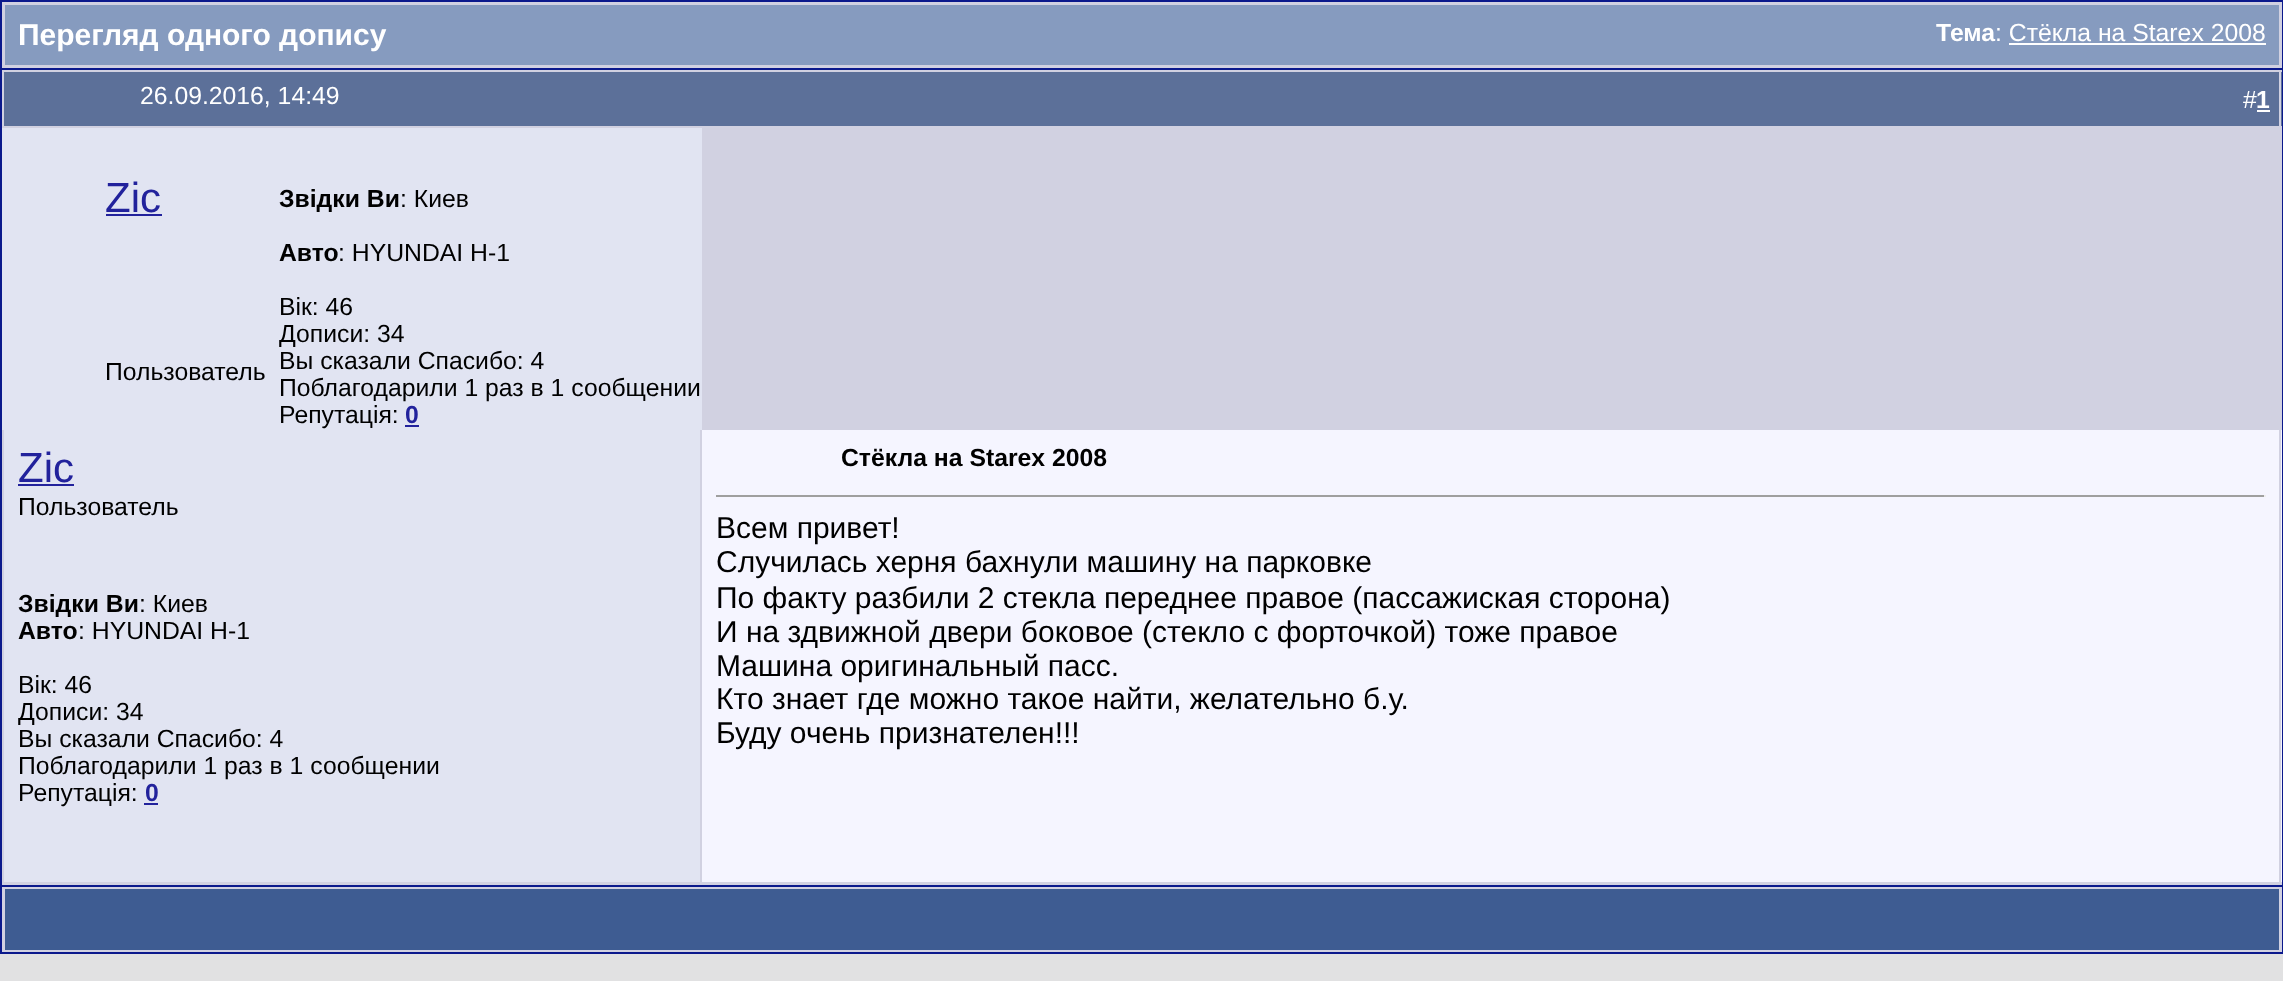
<svg xmlns="http://www.w3.org/2000/svg" width="2283" height="981" viewBox="0 0 2283 981">
  <rect width="100%" height="100%" fill="#e1e1e2"/>
  <rect x="2" y="2" width="2280" height="66" fill="#d1d1e1"/>
  <rect x="0" y="0" width="2283" height="2" fill="#0b198c"/>
  <rect x="2282" y="0" width="1" height="68" fill="#0b198c"/>
  <rect x="0" y="0" width="2" height="68" fill="#0b198c"/>
  <rect x="5" y="5" width="2274" height="60" fill="#869bbf"/>
  <text x="18" y="45" font-family="Liberation Sans" font-size="30" font-weight="bold" fill="#ffffff">Перегляд одного допису</text>
  <text x="1936" y="41" font-family="Liberation Sans" font-size="24.75" font-weight="bold" fill="#ffffff">Тема</text>
  <text x="1995" y="41" font-family="Liberation Sans" font-size="24.75" fill="#ffffff">: Стёкла на Starex 2008</text>
  <rect x="2009" y="43" width="257" height="2" fill="#ffffff"/>
  <rect x="2" y="128" width="2280" height="757" fill="#d1d1e1"/>
  <rect x="1" y="69" width="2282" height="817" fill="none" stroke="#0b198c" stroke-width="2"/>
  <rect x="4" y="72" width="2278" height="54" fill="#5c7099"/>
  <rect x="2" y="70" width="2280" height="2" fill="#d1d1e1"/>
  <rect x="2" y="126" width="700" height="2" fill="#d1d1e1"/>
  <rect x="2" y="70" width="2" height="58" fill="#d1d1e1"/>
  <text x="140" y="104" font-family="Liberation Sans" font-size="24.75" fill="#ffffff">26.09.2016, 14:49</text>
  <rect x="2279" y="70" width="2" height="58" fill="#d1d1e1"/>
  <rect x="702" y="126" width="1580" height="2" fill="#d1d1e1"/>
  <text x="2243" y="108" font-family="Liberation Sans" font-size="24.75" fill="#ffffff">#</text>
  <text x="2256" y="108" font-family="Liberation Sans" font-size="24.75" font-weight="bold" fill="#ffffff">1</text>
  <rect x="2257" y="110" width="13" height="2" fill="#ffffff"/>
  <rect x="2" y="128" width="700" height="302" fill="#e1e4f2"/>
  <text x="105" y="212" font-family="Liberation Sans" font-size="42" fill="#22229c">Zic</text>
  <rect x="106" y="214" width="56" height="2" fill="#22229c"/>
  <text x="105" y="380" font-family="Liberation Sans" font-size="24.75" fill="#000000">Пользователь</text>
  <text x="279" y="207" font-family="Liberation Sans" font-size="24.75" font-weight="bold" fill="#000000">Звідки Ви</text>
  <text x="400" y="207" font-family="Liberation Sans" font-size="24.75" fill="#000000">: Киев</text>
  <text x="279" y="261" font-family="Liberation Sans" font-size="24.75" font-weight="bold" fill="#000000">Авто</text>
  <text x="338" y="261" font-family="Liberation Sans" font-size="24.75" fill="#000000">: HYUNDAI H-1</text>
  <text x="279" y="315" font-family="Liberation Sans" font-size="24.75" fill="#000000">Вік: 46</text>
  <text x="279" y="342" font-family="Liberation Sans" font-size="24.75" fill="#000000">Дописи: 34</text>
  <text x="279" y="369" font-family="Liberation Sans" font-size="24.75" fill="#000000">Вы сказали Спасибо: 4</text>
  <text x="279" y="396" font-family="Liberation Sans" font-size="24.75" fill="#000000">Поблагодарили 1 раз в 1 сообщении</text>
  <text x="279" y="423" font-family="Liberation Sans" font-size="24.75" fill="#000000">Репутація:</text>
  <text x="405" y="423" font-family="Liberation Sans" font-size="24.75" font-weight="bold" fill="#22229c">0</text>
  <rect x="405" y="425" width="14" height="2" fill="#22229c"/>
  <rect x="4" y="430" width="696" height="452" fill="#e1e4f2"/>
  <text x="18" y="482" font-family="Liberation Sans" font-size="42" fill="#22229c">Zic</text>
  <rect x="18" y="484" width="56" height="2" fill="#22229c"/>
  <text x="18" y="515" font-family="Liberation Sans" font-size="24.75" fill="#000000">Пользователь</text>
  <text x="18" y="612" font-family="Liberation Sans" font-size="24.75" font-weight="bold" fill="#000000">Звідки Ви</text>
  <text x="139" y="612" font-family="Liberation Sans" font-size="24.75" fill="#000000">: Киев</text>
  <text x="18" y="639" font-family="Liberation Sans" font-size="24.75" font-weight="bold" fill="#000000">Авто</text>
  <text x="78" y="639" font-family="Liberation Sans" font-size="24.75" fill="#000000">: HYUNDAI H-1</text>
  <text x="18" y="693" font-family="Liberation Sans" font-size="24.75" fill="#000000">Вік: 46</text>
  <text x="18" y="720" font-family="Liberation Sans" font-size="24.75" fill="#000000">Дописи: 34</text>
  <text x="18" y="747" font-family="Liberation Sans" font-size="24.75" fill="#000000">Вы сказали Спасибо: 4</text>
  <text x="18" y="774" font-family="Liberation Sans" font-size="24.75" fill="#000000">Поблагодарили 1 раз в 1 сообщении</text>
  <text x="18" y="801" font-family="Liberation Sans" font-size="24.75" fill="#000000">Репутація:</text>
  <text x="145" y="801" font-family="Liberation Sans" font-size="24.75" font-weight="bold" fill="#22229c">0</text>
  <rect x="144" y="803" width="14" height="2" fill="#22229c"/>
  <rect x="702" y="430" width="1580" height="452" fill="#f5f5ff"/>
  <rect x="2279" y="430" width="2" height="454" fill="#d1d1e1"/>
  <text x="841" y="466" font-family="Liberation Sans" font-size="24.75" font-weight="bold" fill="#000000">Стёкла на Starex 2008</text>
  <rect x="716" y="495" width="1550" height="2" fill="#9f9f9f"/>
  <rect x="2264" y="495" width="2" height="2" fill="#eeeeee"/>
  <text x="716" y="538" font-family="Liberation Sans" font-size="30" fill="#000000">Всем привет!</text>
  <text x="716" y="572" font-family="Liberation Sans" font-size="30" fill="#000000">Случилась херня бахнули машину на парковке</text>
  <text x="716" y="608" font-family="Liberation Sans" font-size="30" fill="#000000">По факту разбили 2 стекла переднее правое (пассажиская сторона)</text>
  <text x="716" y="642" font-family="Liberation Sans" font-size="30" fill="#000000">И на здвижной двери боковое (стекло с форточкой) тоже правое</text>
  <text x="716" y="676" font-family="Liberation Sans" font-size="30" fill="#000000">Машина оригинальный пасс.</text>
  <text x="716" y="709" font-family="Liberation Sans" font-size="30" fill="#000000">Кто знает где можно такое найти, желательно б.у.</text>
  <text x="716" y="743" font-family="Liberation Sans" font-size="30" fill="#000000">Буду очень признателен!!!</text>
  <rect x="2" y="887" width="2280" height="65" fill="#d1d1e1"/>
  <rect x="2282" y="887" width="1" height="67" fill="#0b198c"/>
  <rect x="0" y="952" width="2283" height="2" fill="#0b198c"/>
  <rect x="0" y="887" width="2" height="67" fill="#0b198c"/>
  <rect x="5" y="889" width="2274" height="61" fill="#3e5c92"/>
</svg>
